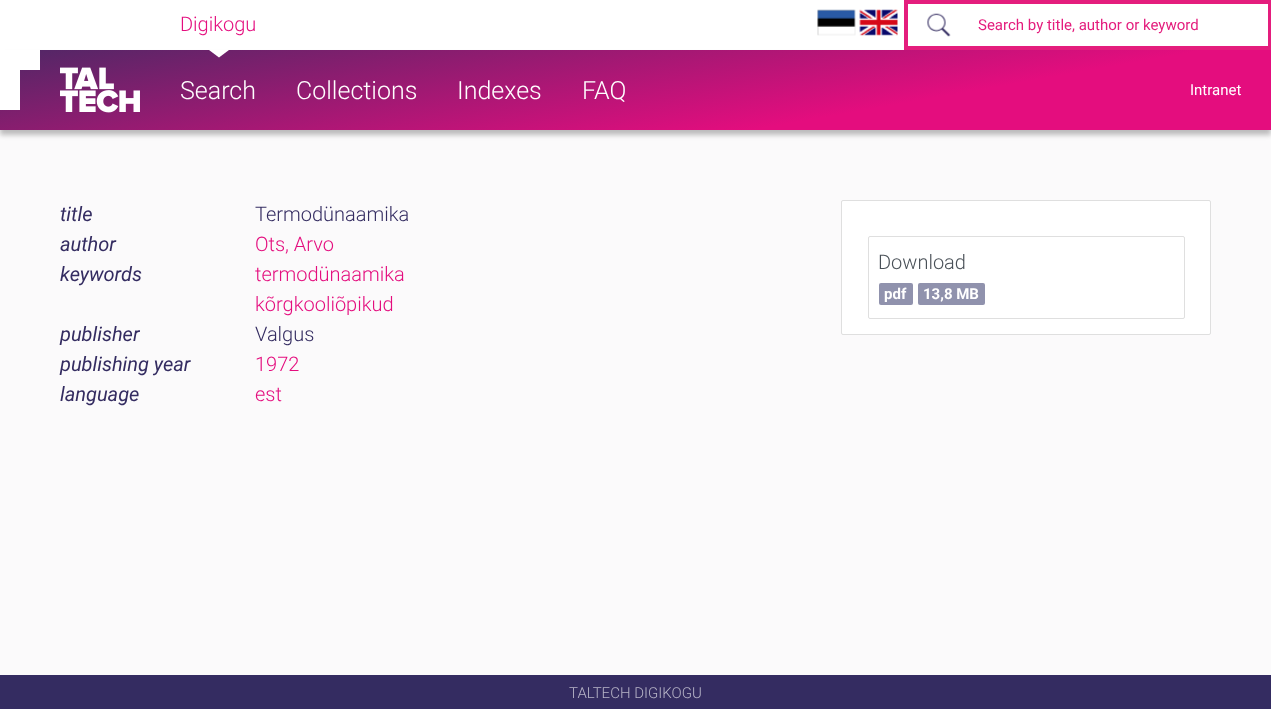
<svg xmlns="http://www.w3.org/2000/svg" width="1271" height="709" viewBox="0 0 1271 709">
  <defs>
    <filter id="blur1" x="-50%" y="-200%" width="200%" height="500%"><feGaussianBlur stdDeviation="2.5"/></filter>
    <linearGradient id="g1" gradientUnits="userSpaceOnUse" x1="610" y1="-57" x2="662" y2="237"><stop offset="0" stop-color="#512766"/><stop offset="0.7" stop-color="#e40d7e"/></linearGradient>
  </defs>
  <rect width="100%" height="100%" fill="#fbfafb"/>
  <rect x="0" y="0" width="904" height="50" fill="#ffffff"/>
  <text x="180" y="31" font-family="Roboto" font-size="20" font-weight="300" fill="#e40d7e">Digikogu</text>
  <rect x="0" y="55" width="1271" height="80" fill="#000000" fill-opacity="0.25" filter="url(#blur1)"/>
  <rect x="0" y="50" width="1271" height="80" fill="url(#g1)"/>
  <path d="M209 50H229L219 57.5Z" fill="#ffffff"/>
  <image x="817" y="9" width="39" height="27" href="img1.png"/>
  <image x="859" y="9" width="39" height="27" href="img2.png"/>
  <rect x="904" y="0" width="367" height="50" fill="#e41d7d"/>
  <rect x="908" y="4" width="360" height="42" fill="#ffffff"/>
  <image x="927" y="13" width="24" height="24" href="img3.png"/>
  <text x="978" y="30" font-family="Roboto" font-size="15" fill="#e41d7d">Search by title, author or keyword</text>
  <rect x="0" y="50" width="40" height="20" fill="#ffffff"/>
  <rect x="0" y="70" width="20" height="40" fill="#ffffff"/>
  <image x="60" y="67" width="80" height="46" href="img4.png"/>
  <text x="180" y="99" font-family="Roboto" font-size="25" font-weight="300" fill="#ffffff">Search</text>
  <text x="296" y="99" font-family="Roboto" font-size="25" font-weight="300" fill="#ffffff">Collections</text>
  <text x="457" y="99" font-family="Roboto" font-size="25" font-weight="300" fill="#ffffff">Indexes</text>
  <text x="582" y="99" font-family="Roboto" font-size="25" font-weight="300" fill="#ffffff">FAQ</text>
  <text x="1190" y="95" font-family="Roboto" font-size="15" fill="#ffffff">Intranet</text>
  <text x="60" y="221" font-family="Roboto" font-size="20" font-style="italic" fill="#342c61">title</text>
  <text x="255" y="221" font-family="Roboto" font-size="20" font-weight="300" fill="#342c61">Termodünaamika</text>
  <text x="60" y="251" font-family="Roboto" font-size="20" font-style="italic" fill="#342c61">author</text>
  <text x="255" y="251" font-family="Roboto" font-size="20" font-weight="300" fill="#e40d7e">Ots, Arvo</text>
  <text x="60" y="281" font-family="Roboto" font-size="20" font-style="italic" fill="#342c61">keywords</text>
  <text x="255" y="281" font-family="Roboto" font-size="20" font-weight="300" fill="#e40d7e">termodünaamika</text>
  <text x="255" y="311" font-family="Roboto" font-size="20" font-weight="300" fill="#e40d7e">kõrgkooliõpikud</text>
  <text x="60" y="341" font-family="Roboto" font-size="20" font-style="italic" fill="#342c61">publisher</text>
  <text x="255" y="341" font-family="Roboto" font-size="20" font-weight="300" fill="#342c61">Valgus</text>
  <text x="60" y="371" font-family="Roboto" font-size="20" font-style="italic" fill="#342c61">publishing year</text>
  <text x="255" y="371" font-family="Roboto" font-size="20" font-weight="300" fill="#e40d7e">1972</text>
  <text x="60" y="401" font-family="Roboto" font-size="20" font-style="italic" fill="#342c61">language</text>
  <text x="255" y="401" font-family="Roboto" font-size="20" font-weight="300" fill="#e40d7e">est</text>
  <rect x="841.5" y="200.5" width="369" height="134" rx="1.5" fill="#ffffff" stroke="#dfdfdf"/>
  <rect x="868.5" y="236.5" width="316" height="82" rx="1.5" fill="none" stroke="#dfdfdf"/>
  <text x="878" y="269" font-family="Roboto" font-size="20" font-weight="300" fill="#495057">Download</text>
  <rect x="879" y="283" width="34" height="22" rx="2" fill="#9092ad"/>
  <text x="884" y="299" font-family="Roboto" font-size="15" font-weight="bold" fill="#ffffff">pdf</text>
  <rect x="918" y="283" width="67" height="22" rx="2" fill="#9092ad"/>
  <text x="923" y="299" font-family="Roboto" font-size="15" font-weight="bold" fill="#ffffff">13,8 MB</text>
  <rect x="0" y="675" width="1271" height="34" fill="#342c61"/>
  <text x="569" y="698" font-family="Roboto" font-size="15" font-weight="300" fill="#b8b5c8">TALTECH DIGIKOGU</text>
</svg>
